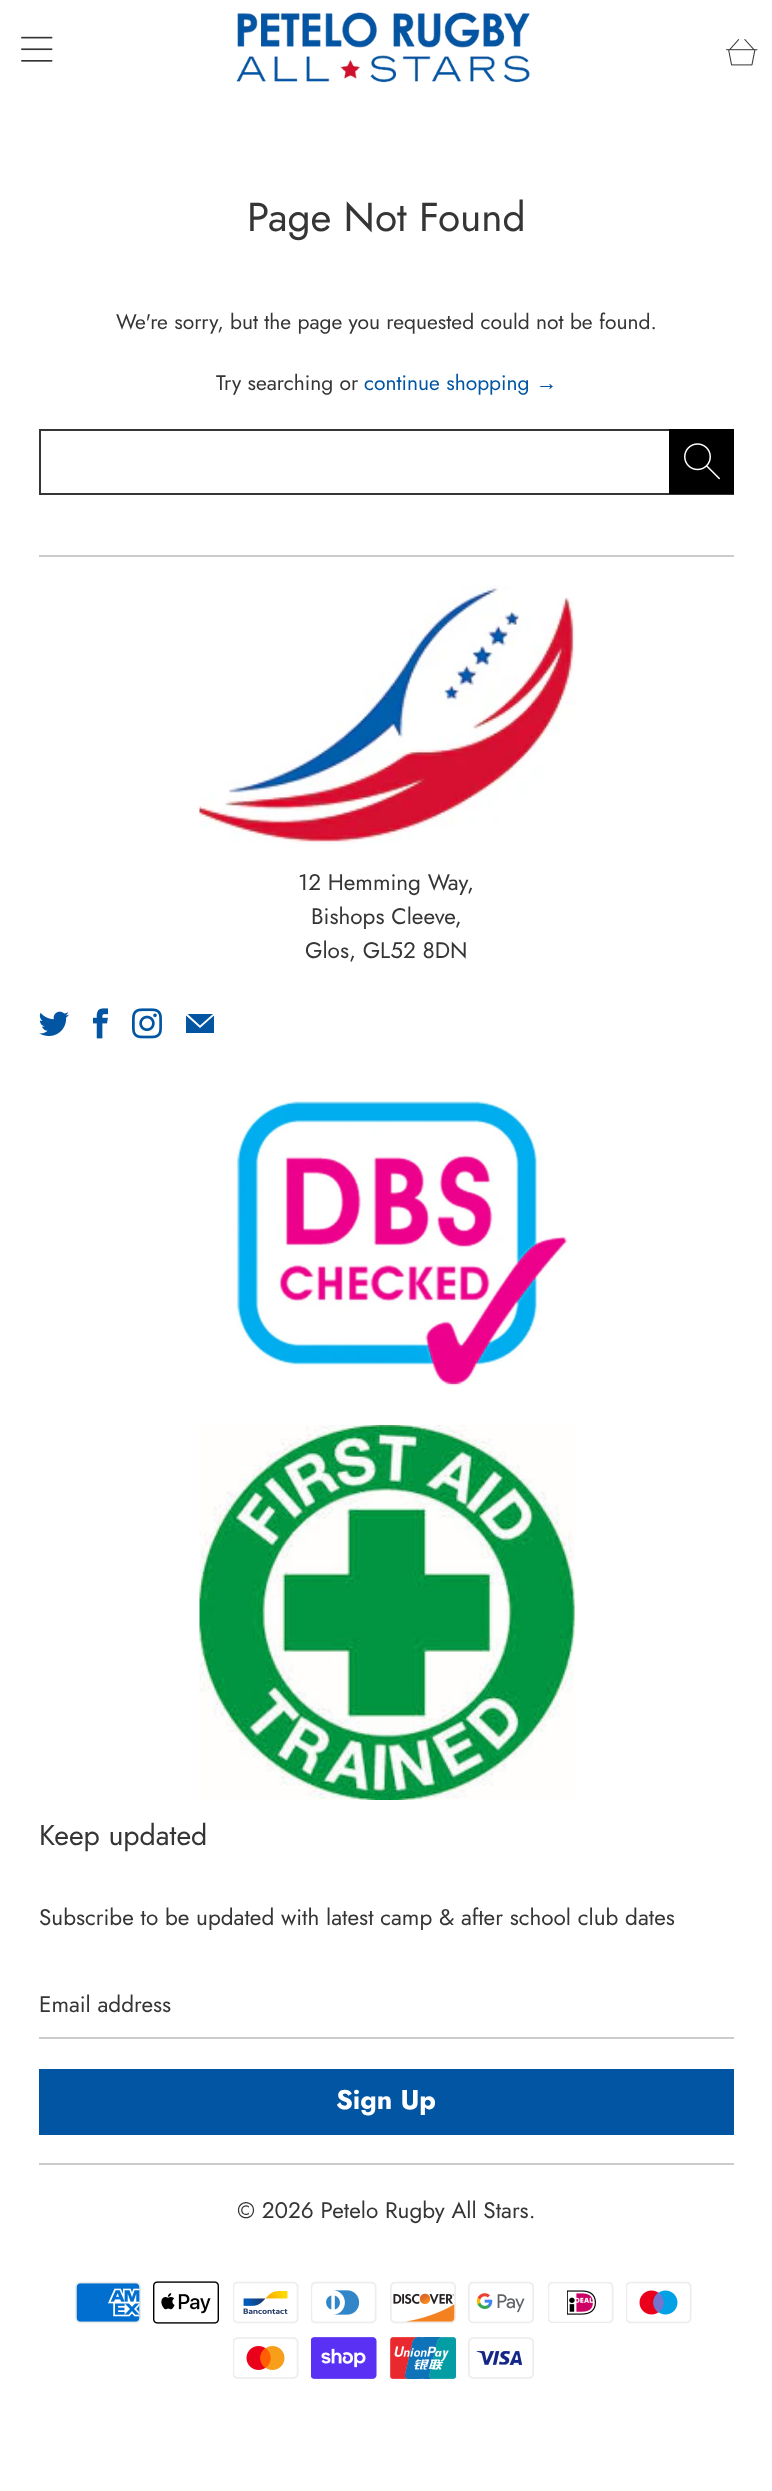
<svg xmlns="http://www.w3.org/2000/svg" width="772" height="2491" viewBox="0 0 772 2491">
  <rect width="100%" height="100%" fill="#ffffff"/>
  <image x="21" y="36" width="32" height="26" href="img1.png"/>
  <image x="236" y="12" width="294" height="71" href="img2.png"/>
  <image x="726" y="39" width="32" height="27" href="img3.png"/>
  <text x="247" y="231" font-family="Jost" font-size="40.5" fill="#353535">Page Not Found</text>
  <text x="116" y="329" font-family="Jost" font-size="21" fill="#353535">We're sorry, but the page you requested could not be found.</text>
  <text x="216" y="390" font-family="Jost" font-size="21" fill="#353535">Try searching or</text>
  <text x="364" y="390" font-family="Jost" font-size="21" fill="#0255a3">continue shopping</text>
  <text x="536" y="390" font-family="Liberation Sans" font-size="21" fill="#0255a3">→</text>
  <rect x="40" y="430" width="693" height="64" fill="none" stroke="#353535" stroke-width="2"/>
  <rect x="669" y="429" width="65" height="65" fill="#000000"/>
  <image x="684" y="443" width="36" height="37" href="img4.png"/>
  <rect x="39" y="555" width="695" height="2" fill="#cccccc"/>
  <image x="199" y="585" width="376" height="259" href="img5.png"/>
  <text x="298" y="890" font-family="Jost" font-size="22.5" fill="#353535">12 Hemming Way,</text>
  <text x="311" y="924" font-family="Jost" font-size="22.5" fill="#353535">Bishops Cleeve,</text>
  <text x="305" y="958" font-family="Jost" font-size="22.5" fill="#353535">Glos, GL52 8DN</text>
  <image x="39" y="1011" width="30" height="25" href="img6.png"/>
  <image x="93" y="1008" width="15" height="31" href="img7.png"/>
  <image x="132" y="1008" width="30" height="31" href="img8.png"/>
  <path d="M213 1014L200 1025.5L187.5 1014ZM200 1028L214 1015.5V1033H186V1015.5Z" fill="#0255a3"/>
  <image x="235" y="1098" width="334" height="288" href="img9.png"/>
  <image x="199" y="1425" width="376" height="375" href="img10.png"/>
  <text x="39" y="1845" font-family="Jost" font-size="28.5" fill="#353535">Keep updated</text>
  <text x="39" y="1925" font-family="Jost" font-size="22.5" fill="#353535">Subscribe to be updated with latest camp &amp; after school club dates</text>
  <rect x="39" y="2037" width="695" height="2" fill="#cccccc"/>
  <text x="39" y="2012" font-family="Jost" font-size="22.5" fill="#353535">Email address</text>
  <rect x="39" y="2069" width="695" height="66" fill="#0255a3"/>
  <text x="336" y="2109" font-family="Jost" font-size="27" font-weight="bold" fill="#ffffff">Sign Up</text>
  <rect x="39" y="2163" width="695" height="2" fill="#cccccc"/>
  <text x="237" y="2218" font-family="Jost" font-size="22.5" fill="#353535">© 2026 Petelo Rugby All Stars.</text>
  <image x="75" y="2281" width="66" height="43" href="img11.png"/>
  <image x="153" y="2281" width="66" height="43" href="img12.png"/>
  <image x="233" y="2281" width="66" height="43" href="img13.png"/>
  <image x="311" y="2281" width="66" height="43" href="img14.png"/>
  <image x="390" y="2281" width="66" height="43" href="img15.png"/>
  <image x="468" y="2281" width="66" height="43" href="img16.png"/>
  <image x="548" y="2282" width="66" height="41" href="img17.png"/>
  <image x="626" y="2281" width="66" height="43" href="img18.png"/>
  <image x="233" y="2337" width="66" height="42" href="img19.png"/>
  <image x="311" y="2337" width="66" height="42" href="img20.png"/>
  <image x="390" y="2337" width="66" height="42" href="img21.png"/>
  <image x="468" y="2337" width="66" height="42" href="img22.png"/>
</svg>
